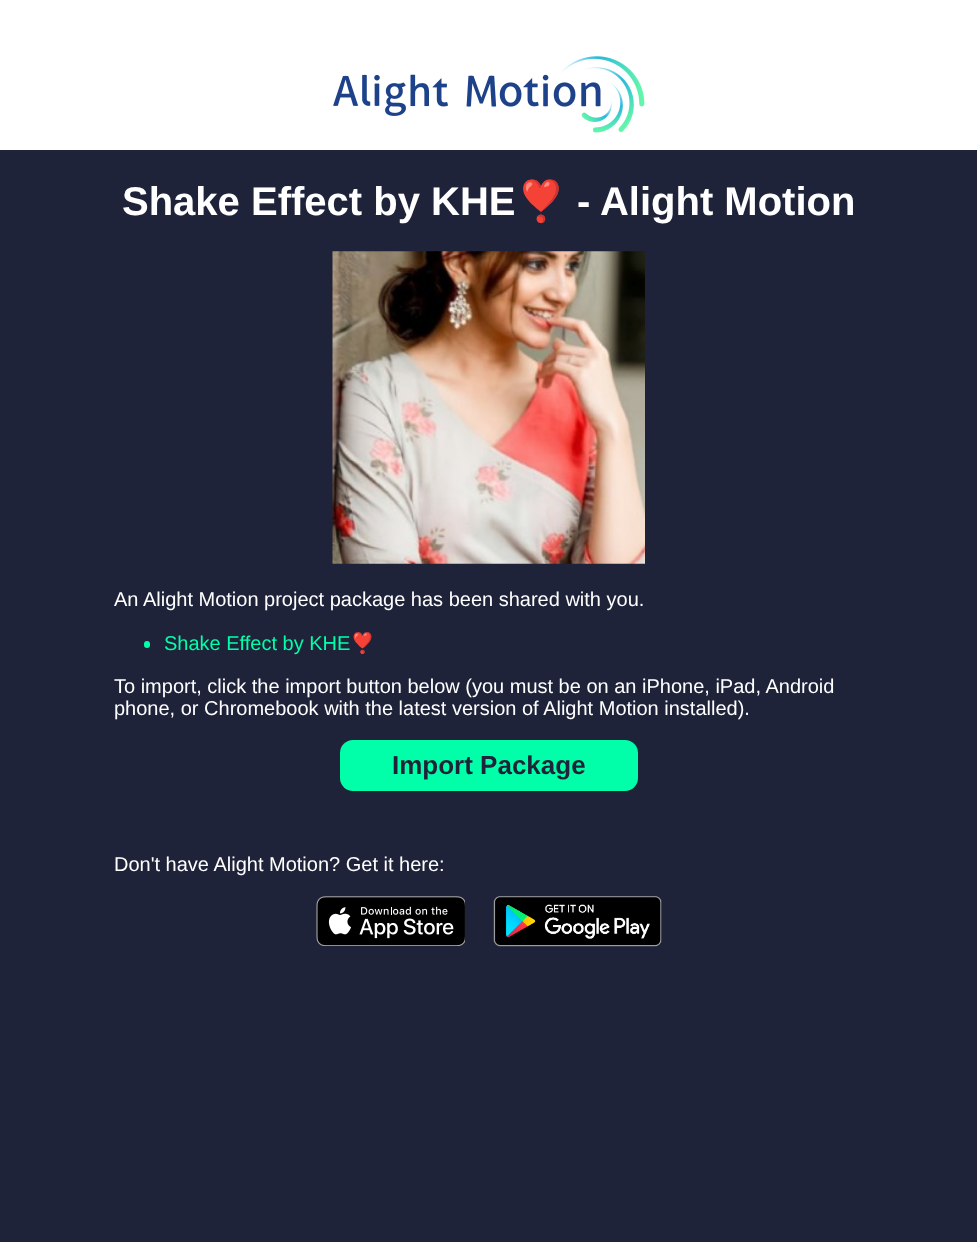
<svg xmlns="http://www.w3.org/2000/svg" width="977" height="1242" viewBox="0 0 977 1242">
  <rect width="100%" height="100%" fill="#1f233a"/>
  <rect x="0" y="0" width="977" height="150" fill="#ffffff"/>
  <image x="333" y="56" width="312" height="77" href="img1.png"/>
  <text x="122" y="215" font-family="Liberation Sans" font-size="40" font-weight="bold" fill="#ffffff">Shake Effect by KHE</text>
  <text x="516" y="215" font-family="Noto Color Emoji" font-size="40" font-weight="bold" fill="#ffffff">❣️</text>
  <text x="577" y="215" font-family="Liberation Sans" font-size="40" font-weight="bold" fill="#ffffff">- Alight Motion</text>
  <image x="332" y="251" width="313" height="313" href="img2.png"/>
  <text x="114" y="606" font-family="Liberation Sans" font-size="20" fill="#ffffff">An Alight Motion project package has been shared with you.</text>
  <rect x="144" y="641" width="6" height="7" rx="3" fill="#00ffa8"/>
  <text x="164" y="650" font-family="Liberation Sans" font-size="20" fill="#00ffa8">Shake Effect by KHE</text>
  <text x="350" y="650" font-family="Noto Color Emoji" font-size="20" fill="#00ffa8">❣️</text>
  <text x="114" y="693" font-family="Liberation Sans" font-size="20" fill="#ffffff">To import, click the import button below (you must be on an iPhone, iPad, Android</text>
  <text x="114" y="715" font-family="Liberation Sans" font-size="20" fill="#ffffff">phone, or Chromebook with the latest version of Alight Motion installed).</text>
  <rect x="340" y="740" width="298" height="51" rx="13" fill="#00ffa8"/>
  <text x="392" y="774" font-family="Liberation Sans" font-size="26" font-weight="bold" fill="#1f233a">Import Package</text>
  <text x="114" y="871" font-family="Liberation Sans" font-size="20" fill="#ffffff">Don't have Alight Motion? Get it here:</text>
  <image x="316" y="896" width="149" height="50" href="img3.png"/>
  <image x="493" y="896" width="169" height="51" href="img4.png"/>
</svg>
